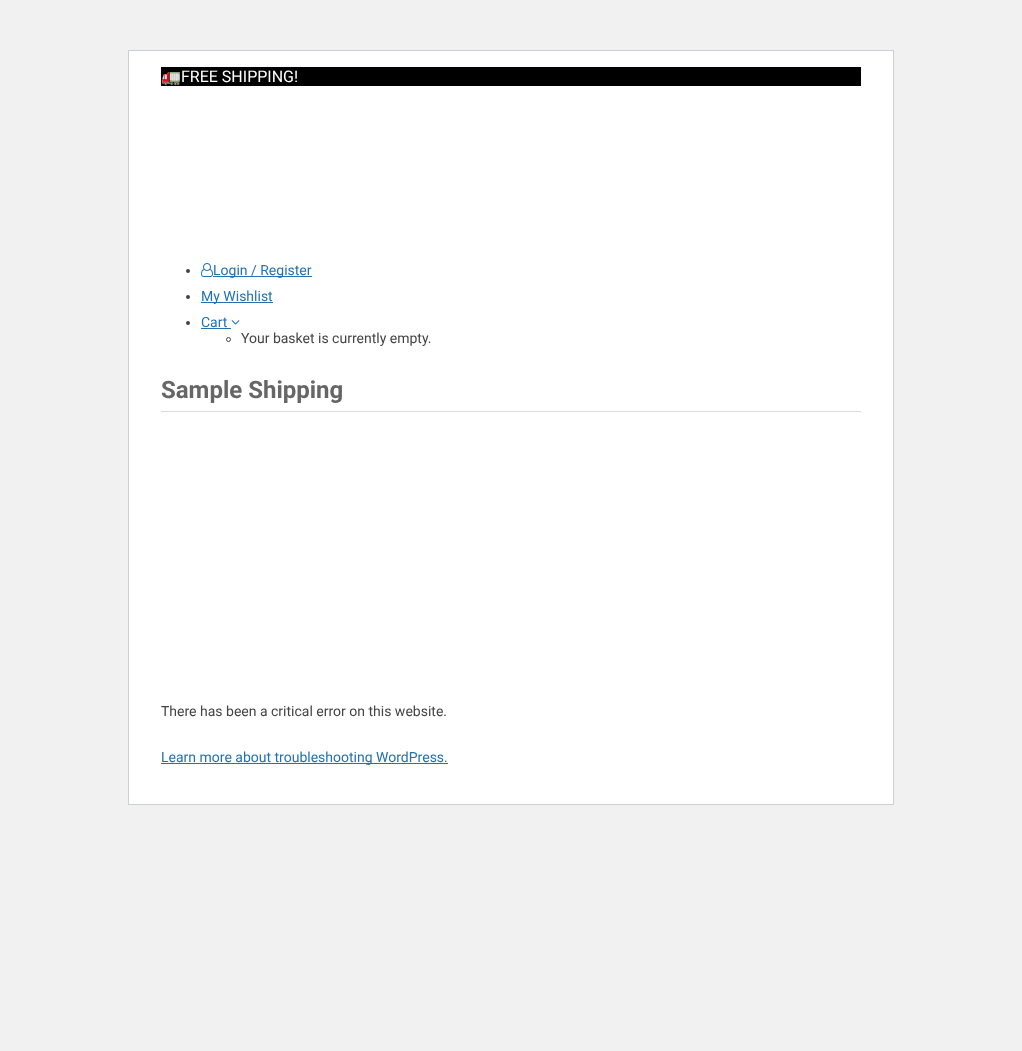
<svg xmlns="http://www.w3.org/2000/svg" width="1022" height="1051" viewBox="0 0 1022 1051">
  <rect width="100%" height="100%" fill="#f1f1f1"/>
  <rect x="128.5" y="50.5" width="765" height="754" fill="#ffffff" stroke="#ccd0d4"/>
  <rect x="161" y="67" width="700" height="19" fill="#000000"/>
  <text x="161" y="82" font-family="Noto Color Emoji" font-size="16" fill="#ffffff">🚛</text>
  <text x="181" y="82" font-family="Roboto" font-size="16" fill="#ffffff">FREE SHIPPING!</text>
  <circle cx="188" cy="271" r="2" fill="#444444"/>
  <image x="201" y="263" width="12" height="14" href="img1.png"/>
  <rect x="213" y="276" width="99" height="1" fill="#2271b1"/>
  <text x="213" y="275" font-family="Roboto" font-size="14" fill="#2271b1">Login / Register</text>
  <circle cx="188" cy="297" r="2" fill="#444444"/>
  <rect x="201" y="302" width="72" height="1" fill="#2271b1"/>
  <text x="201" y="301" font-family="Roboto" font-size="14" fill="#2271b1">My Wishlist</text>
  <circle cx="188" cy="323" r="2" fill="#444444"/>
  <text x="201" y="327" font-family="Roboto" font-size="14" fill="#2271b1">Cart</text>
  <rect x="201" y="328" width="30" height="1" fill="#2271b1"/>
  <image x="231" y="320" width="9" height="5" href="img2.png"/>
  <circle cx="228.5" cy="339.5" r="2" fill="none" stroke="#444444"/>
  <text x="241" y="343" font-family="Roboto" font-size="14" fill="#444444">Your basket is currently empty.</text>
  <rect x="161" y="411" width="700" height="1" fill="#dadada"/>
  <text x="161" y="398" font-family="Roboto" font-size="24" font-weight="bold" fill="#666666">Sample Shipping</text>
  <text x="161" y="716" font-family="Roboto" font-size="14" fill="#444444">There has been a critical error on this website.</text>
  <rect x="161" y="763" width="287" height="1" fill="#2271b1"/>
  <text x="161" y="762" font-family="Roboto" font-size="14" fill="#2271b1">Learn more about troubleshooting WordPress.</text>
</svg>
